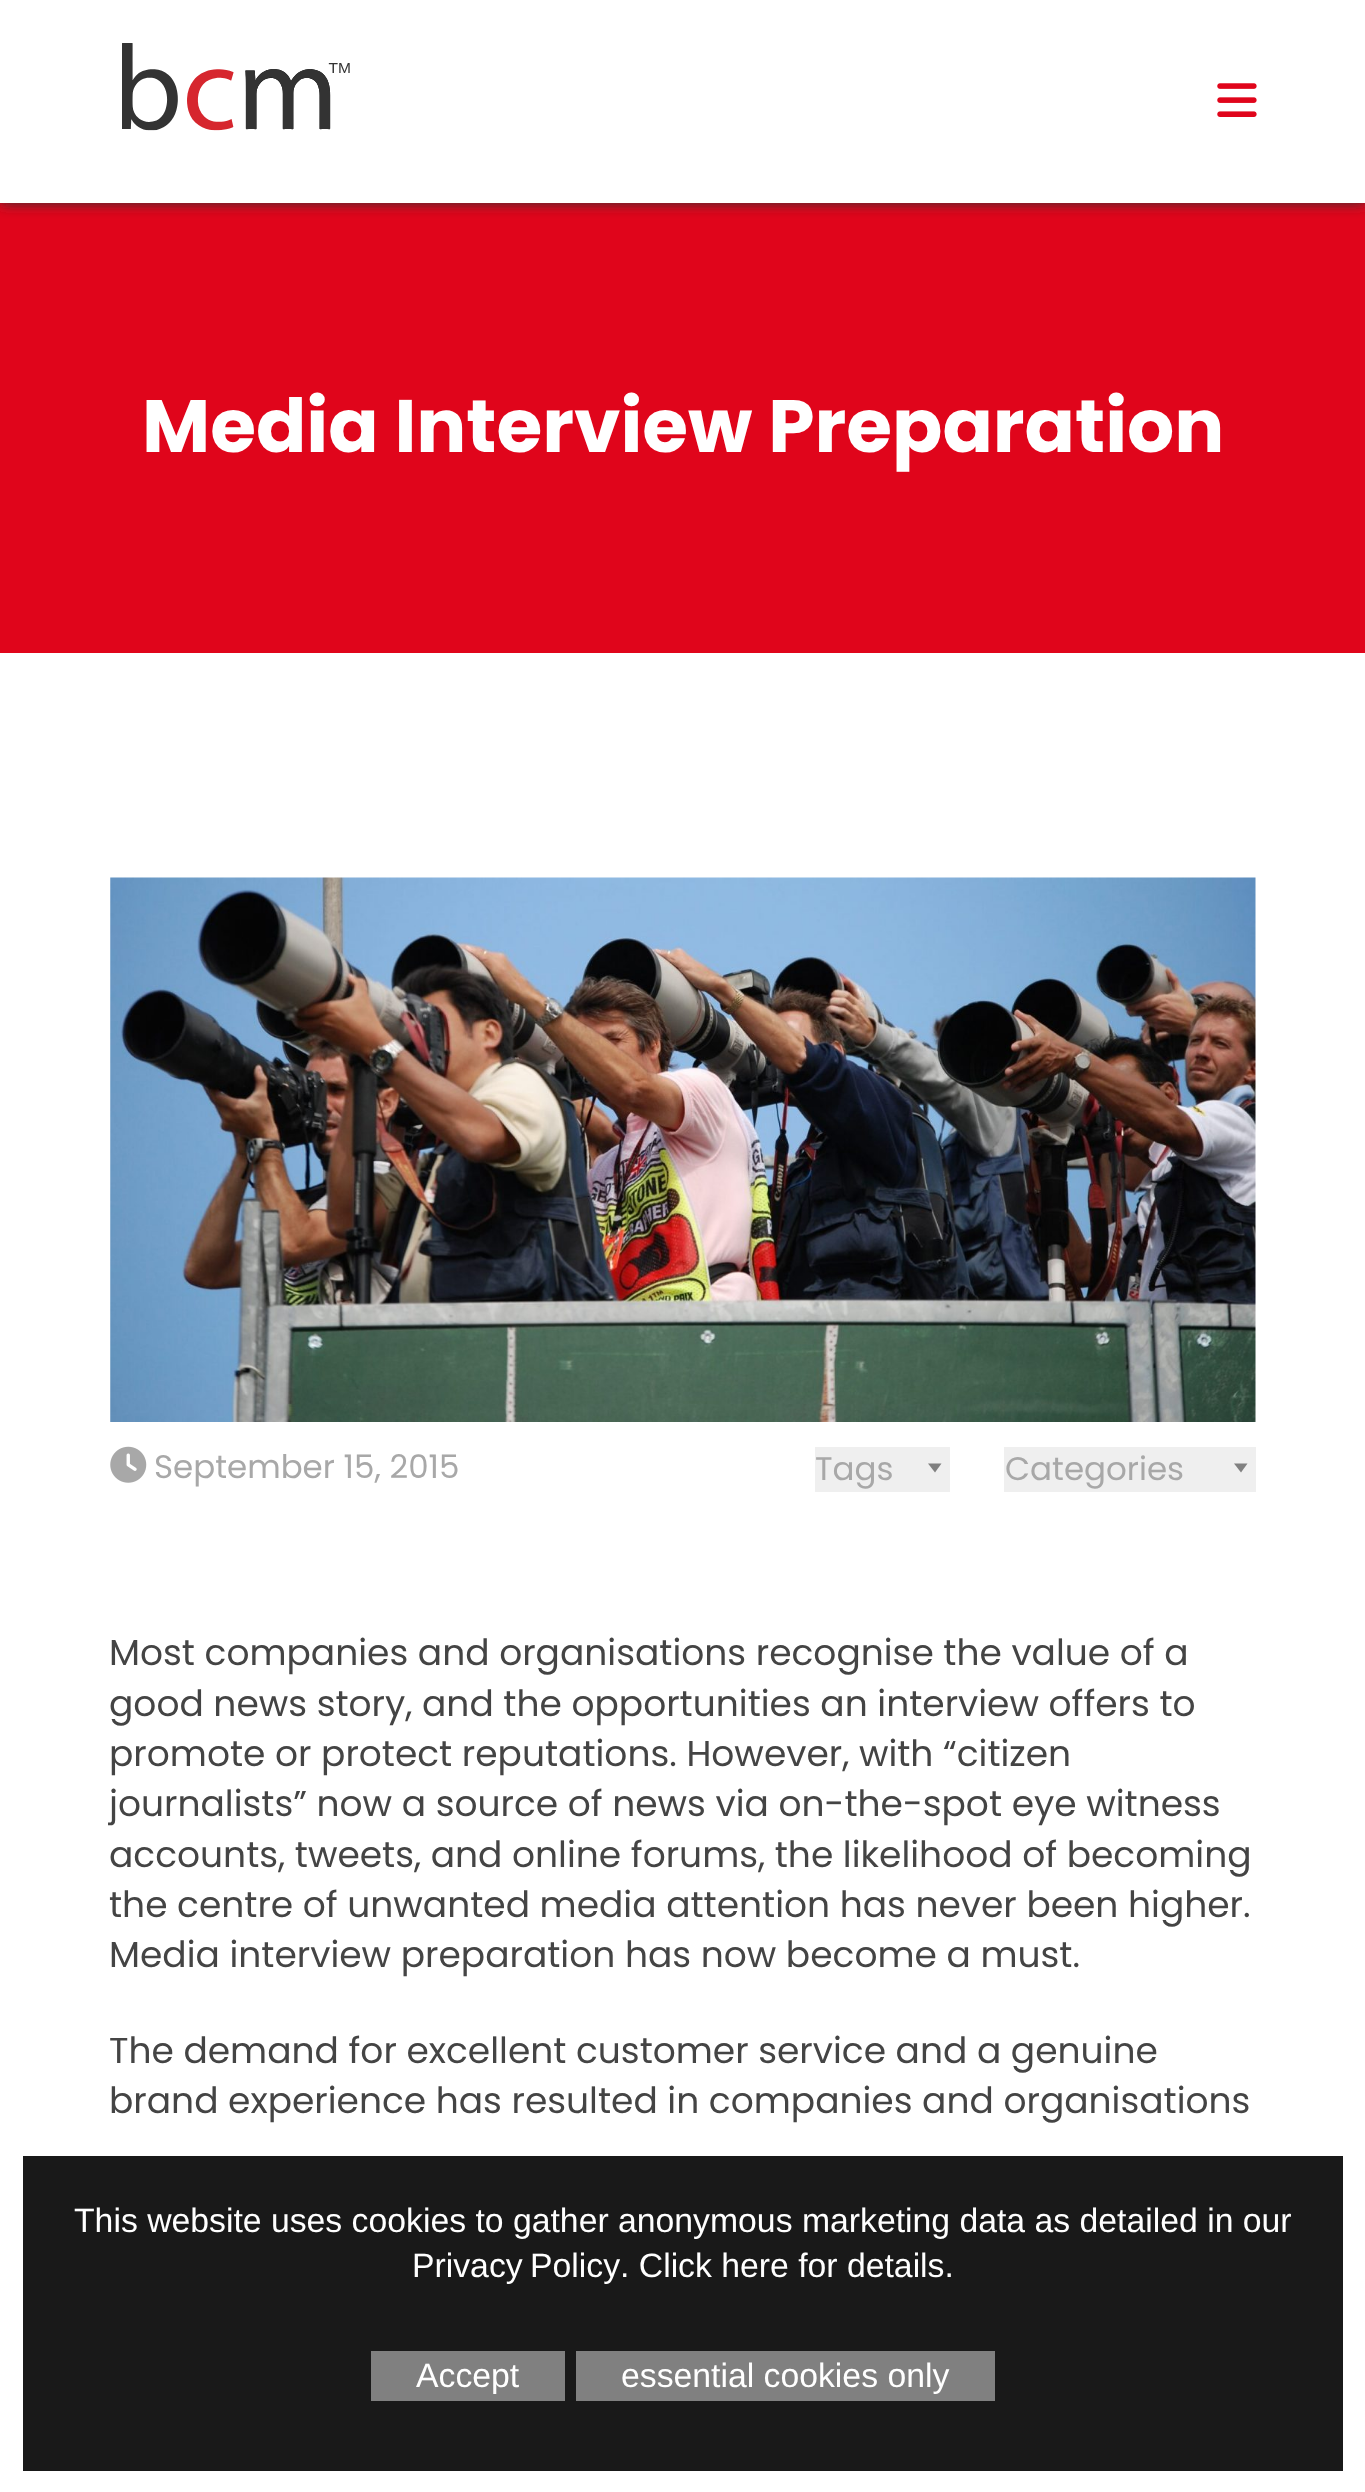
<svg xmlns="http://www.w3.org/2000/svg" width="1365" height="2492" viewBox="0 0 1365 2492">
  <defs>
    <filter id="blur1" x="-50%" y="-200%" width="200%" height="500%"><feGaussianBlur stdDeviation="7"/></filter>
  </defs>
  <rect width="100%" height="100%" fill="#ffffff"/>
  <rect x="0" y="203" width="1365" height="450" fill="#e0051b"/>
  <rect x="0" y="0" width="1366" height="203" fill="#333333" filter="url(#blur1)"/>
  <rect x="0" y="0" width="1365" height="203" fill="#ffffff"/>
  <image x="122" y="43" width="228" height="88" href="img1.png"/>
  <image x="1217" y="83" width="40" height="34" href="img2.png"/>
  <text x="142" y="452" font-family="Poppins" font-size="74.25" font-weight="bold" fill="#ffffff">Media Interview Preparation</text>
  <image x="110" y="877" width="1146" height="545" href="img3.png"/>
  <image x="110" y="1446" width="37" height="37" href="img4.png"/>
  <text x="154" y="1478" font-family="Poppins" font-size="32.5" fill="#a8a8a8">September 15, 2015</text>
  <rect x="815" y="1447" width="135" height="45" fill="#efefef"/>
  <path d="M928 1463.5L935 1472.5L941.5 1463.5Z" fill="#808080"/>
  <text x="815" y="1480" font-family="Poppins" font-size="32.5" fill="#a8a8a8">Tags</text>
  <rect x="1004" y="1447" width="252" height="45" fill="#efefef"/>
  <path d="M1234 1463.5L1241 1472.5L1247.5 1463.5Z" fill="#808080"/>
  <text x="1005" y="1480" font-family="Poppins" font-size="32.5" fill="#a8a8a8">Categories</text>
  <text x="109" y="1665" font-family="Poppins" font-size="36" fill="#444444">Most companies and organisations recognise the value of a</text>
  <text x="109" y="1716" font-family="Poppins" font-size="36" fill="#444444">good news story, and the opportunities an interview offers to</text>
  <text x="109" y="1766" font-family="Poppins" font-size="36" fill="#444444">promote or protect reputations. However, with “citizen</text>
  <text x="109" y="1816" font-family="Poppins" font-size="36" fill="#444444">journalists” now a source of news via on-the-spot eye witness</text>
  <text x="109" y="1867" font-family="Poppins" font-size="36" fill="#444444">accounts, tweets, and online forums, the likelihood of becoming</text>
  <text x="109" y="1917" font-family="Poppins" font-size="36" fill="#444444">the centre of unwanted media attention has never been higher.</text>
  <text x="109" y="1967" font-family="Poppins" font-size="36" fill="#444444">Media interview preparation has now become a must.</text>
  <text x="109" y="2063" font-family="Poppins" font-size="36" fill="#444444">The demand for excellent customer service and a genuine</text>
  <text x="109" y="2113" font-family="Poppins" font-size="36" fill="#444444">brand experience has resulted in companies and organisations</text>
  <rect x="23" y="2156" width="1320" height="315" fill="#000000" fill-opacity="0.9"/>
  <text x="74" y="2232" font-family="Liberation Sans" font-size="33.75" fill="#ffffff">This website uses cookies to gather anonymous marketing data as detailed in our</text>
  <text x="412" y="2277" word-spacing="-2" font-family="Liberation Sans" font-size="33.75" fill="#ffffff">Privacy Policy</text>
  <text x="620" y="2277" font-family="Liberation Sans" font-size="33.75" fill="#ffffff">. Click here for details.</text>
  <rect x="371" y="2351" width="194" height="50" fill="#808080"/>
  <text x="416" y="2387" font-family="Liberation Sans" font-size="33.75" fill="#ffffff">Accept</text>
  <rect x="576" y="2351" width="419" height="50" fill="#808080"/>
  <text x="621" y="2387" font-family="Liberation Sans" font-size="33.75" fill="#ffffff">essential cookies only</text>
</svg>
